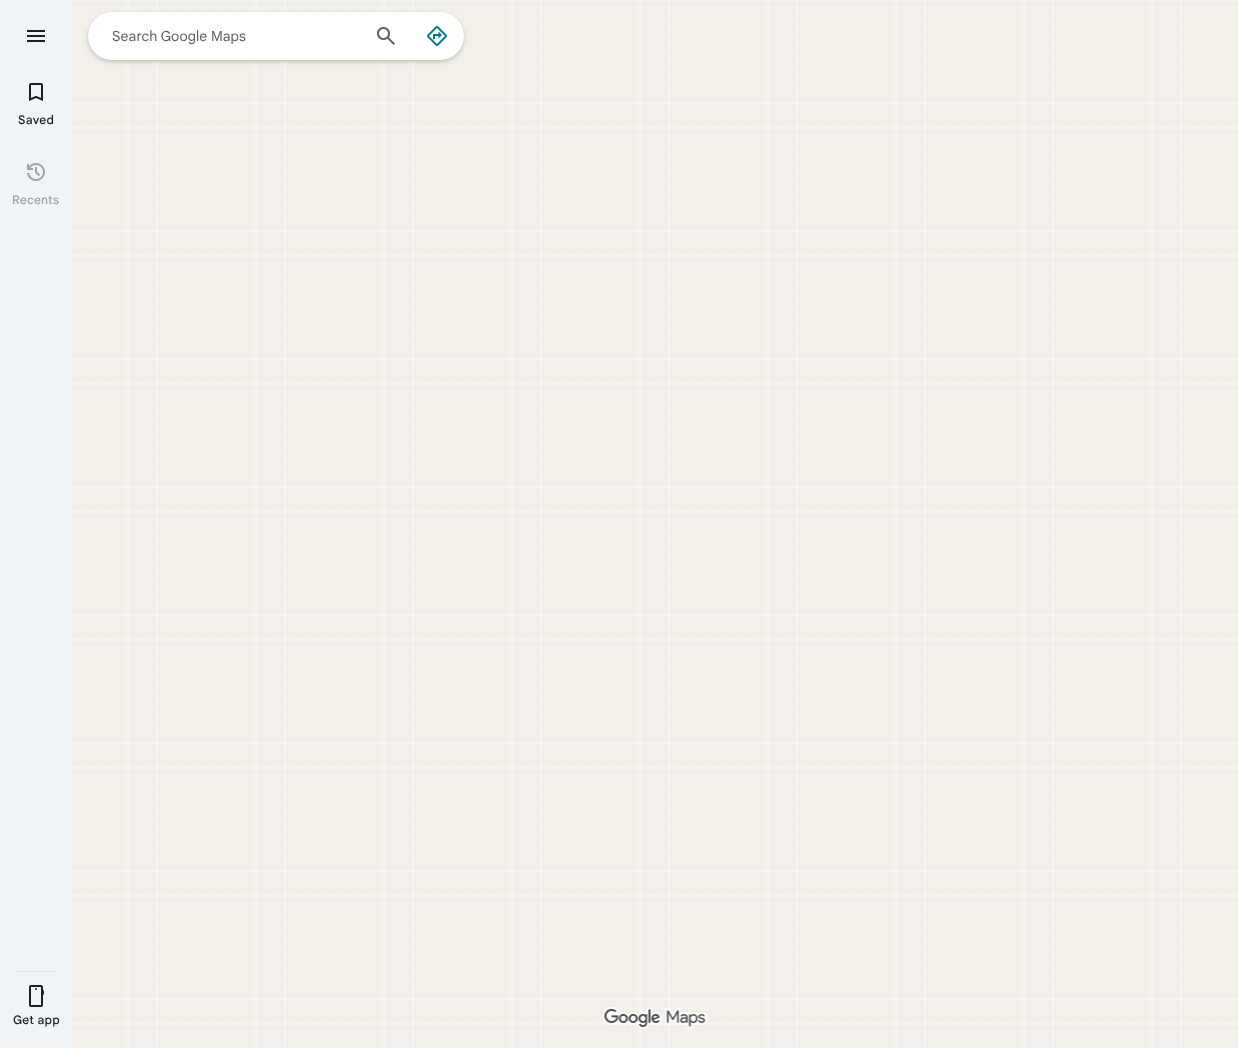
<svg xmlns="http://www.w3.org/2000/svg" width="1238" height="1048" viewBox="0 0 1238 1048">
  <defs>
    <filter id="blur1" x="-50%" y="-200%" width="200%" height="500%"><feGaussianBlur stdDeviation="2"/></filter>
  </defs>
  <rect width="100%" height="100%" fill="#ffffff"/>
  <image x="72" y="0" width="1166" height="1048" href="img1.png"/>
  <image x="72" y="0" width="1166" height="1048" href="img2.png"/>
  <image x="602" y="1007" width="106" height="22" href="img3.png"/>
  <rect x="88" y="14" width="376" height="48" rx="24" fill="#000000" fill-opacity="0.2" filter="url(#blur1)"/>
  <rect x="88" y="12" width="376" height="48" rx="24" fill="#ffffff"/>
  <text x="112" y="41" font-family="Google Sans" font-size="14" letter-spacing="0.1" fill="#5e5e5e">Search Google Maps</text>
  <image x="377" y="27" width="18" height="18" href="img4.png"/>
  <image x="427" y="26" width="20" height="20" href="img5.png"/>
  <rect x="0" y="0" width="72" height="1048" fill="#eff5f6"/>
  <image x="27" y="30" width="18" height="12" href="img6.png"/>
  <image x="29" y="83" width="14" height="18" href="img7.png"/>
  <text x="18" y="124" font-family="Google Sans" font-size="12" font-weight="500" letter-spacing="0.25" fill="#1f1f1f">Saved</text>
  <image x="27" y="163" width="18" height="18" href="img8.png"/>
  <text x="12" y="204" font-family="Google Sans" font-size="12" font-weight="500" letter-spacing="0.25" fill="#a0a4a4">Recents</text>
  <rect x="14" y="971" width="44" height="1" fill="#e3e3e3"/>
  <image x="29" y="985" width="15" height="22" href="img9.png"/>
  <text x="13" y="1024" font-family="Google Sans" font-size="12" font-weight="500" letter-spacing="0.25" fill="#1f1f1f">Get app</text>
</svg>
